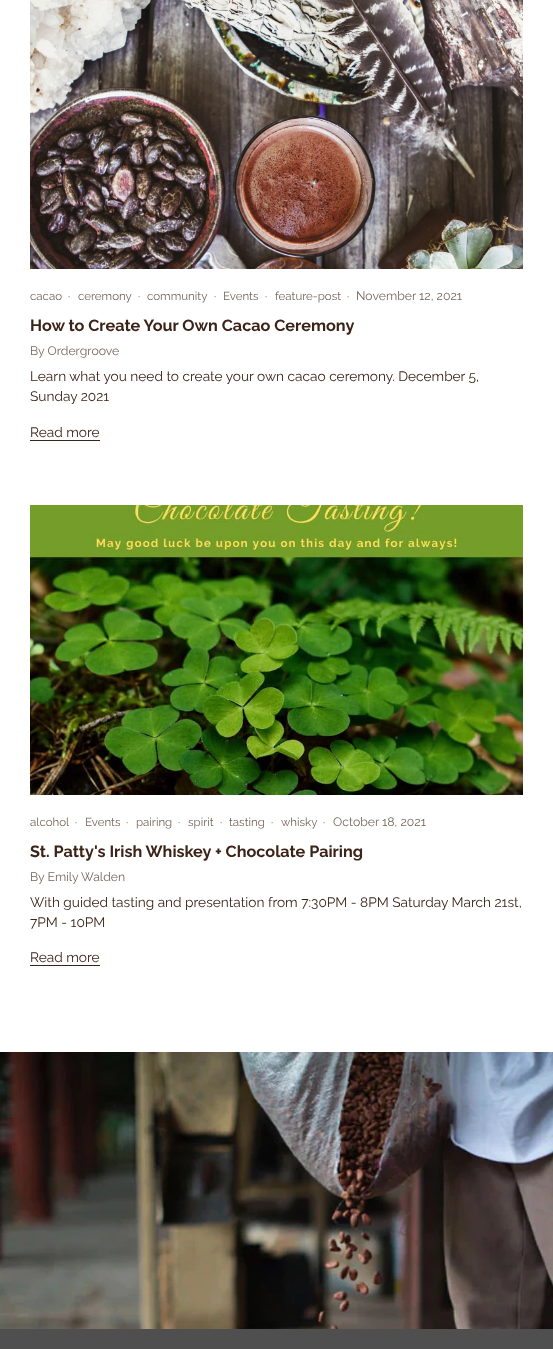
<svg xmlns="http://www.w3.org/2000/svg" width="553" height="1349" viewBox="0 0 553 1349">
  <rect width="100%" height="100%" fill="#ffffff"/>
  <image x="30" y="0" width="493" height="269" href="img1.png"/>
  <text x="30" y="300" font-family="Raleway" font-size="11.5" font-weight="100" fill="#77655d">cacao</text>
  <text x="68" y="300" font-family="Raleway" font-size="11.5" font-weight="100" fill="#77655d">·</text>
  <text x="78" y="300" font-family="Raleway" font-size="11.5" font-weight="100" fill="#77655d">ceremony</text>
  <text x="138" y="300" font-family="Raleway" font-size="11.5" font-weight="100" fill="#77655d">·</text>
  <text x="147" y="300" font-family="Raleway" font-size="11.5" font-weight="100" fill="#77655d">community</text>
  <text x="214" y="300" font-family="Raleway" font-size="11.5" font-weight="100" fill="#77655d">·</text>
  <text x="223" y="300" font-family="Raleway" font-size="11.5" font-weight="100" fill="#77655d">Events</text>
  <text x="265" y="300" font-family="Raleway" font-size="11.5" font-weight="100" fill="#77655d">·</text>
  <text x="275" y="300" font-family="Raleway" font-size="11.5" font-weight="100" fill="#77655d">feature-post</text>
  <text x="347" y="300" font-family="Raleway" font-size="11.5" font-weight="100" fill="#77655d">·</text>
  <text x="356" y="300" font-family="Raleway" font-size="12.25" font-weight="100" fill="#77655d">November 12, 2021</text>
  <text x="30" y="331" font-family="Raleway" font-size="16.2" font-weight="bold" fill="#3c2318">How to Create Your Own Cacao Ceremony</text>
  <text x="30" y="355" font-family="Raleway" font-size="12.25" font-weight="100" fill="#77655d">By Ordergroove</text>
  <text x="30" y="381" font-family="Raleway" font-size="13.7" font-weight="100" fill="#3c2318">Learn what you need to create your own cacao ceremony. December 5,</text>
  <text x="30" y="401" font-family="Raleway" font-size="13.7" font-weight="100" fill="#3c2318">Sunday 2021</text>
  <text x="30" y="437" font-family="Raleway" font-size="13.7" font-weight="100" fill="#3c2318">Read more</text>
  <rect x="30" y="440" width="70" height="1" fill="#3c2318"/>
  <image x="30" y="505" width="493" height="290" href="img2.png"/>
  <text x="30" y="826" font-family="Raleway" font-size="11.5" font-weight="100" fill="#77655d">alcohol</text>
  <text x="75" y="826" font-family="Raleway" font-size="11.5" font-weight="100" fill="#77655d">·</text>
  <text x="85" y="826" font-family="Raleway" font-size="11.5" font-weight="100" fill="#77655d">Events</text>
  <text x="126" y="826" font-family="Raleway" font-size="11.5" font-weight="100" fill="#77655d">·</text>
  <text x="136" y="826" font-family="Raleway" font-size="11.5" font-weight="100" fill="#77655d">pairing</text>
  <text x="178" y="826" font-family="Raleway" font-size="11.5" font-weight="100" fill="#77655d">·</text>
  <text x="188" y="826" font-family="Raleway" font-size="11.5" font-weight="100" fill="#77655d">spirit</text>
  <text x="220" y="826" font-family="Raleway" font-size="11.5" font-weight="100" fill="#77655d">·</text>
  <text x="229" y="826" font-family="Raleway" font-size="11.5" font-weight="100" fill="#77655d">tasting</text>
  <text x="271" y="826" font-family="Raleway" font-size="11.5" font-weight="100" fill="#77655d">·</text>
  <text x="281" y="826" font-family="Raleway" font-size="11.5" font-weight="100" fill="#77655d">whisky</text>
  <text x="323" y="826" font-family="Raleway" font-size="11.5" font-weight="100" fill="#77655d">·</text>
  <text x="333" y="826" font-family="Raleway" font-size="12.25" font-weight="100" fill="#77655d">October 18, 2021</text>
  <text x="30" y="857" font-family="Raleway" font-size="16.2" font-weight="bold" fill="#3c2318">St. Patty's Irish Whiskey + Chocolate Pairing</text>
  <text x="30" y="881" font-family="Raleway" font-size="12.25" font-weight="100" fill="#77655d">By Emily Walden</text>
  <text x="30" y="907" font-family="Raleway" font-size="13.7" font-weight="100" fill="#3c2318">With guided tasting and presentation from 7:30PM - 8PM Saturday March 21st,</text>
  <text x="30" y="927" font-family="Raleway" font-size="13.7" font-weight="100" fill="#3c2318">7PM - 10PM</text>
  <text x="30" y="962" font-family="Raleway" font-size="13.7" font-weight="100" fill="#3c2318">Read more</text>
  <rect x="30" y="965" width="70" height="1" fill="#3c2318"/>
  <rect x="0" y="1329" width="553" height="20" fill="#4f4f4f"/>
  <image x="0" y="1052" width="553" height="277" href="img3.png"/>
</svg>
